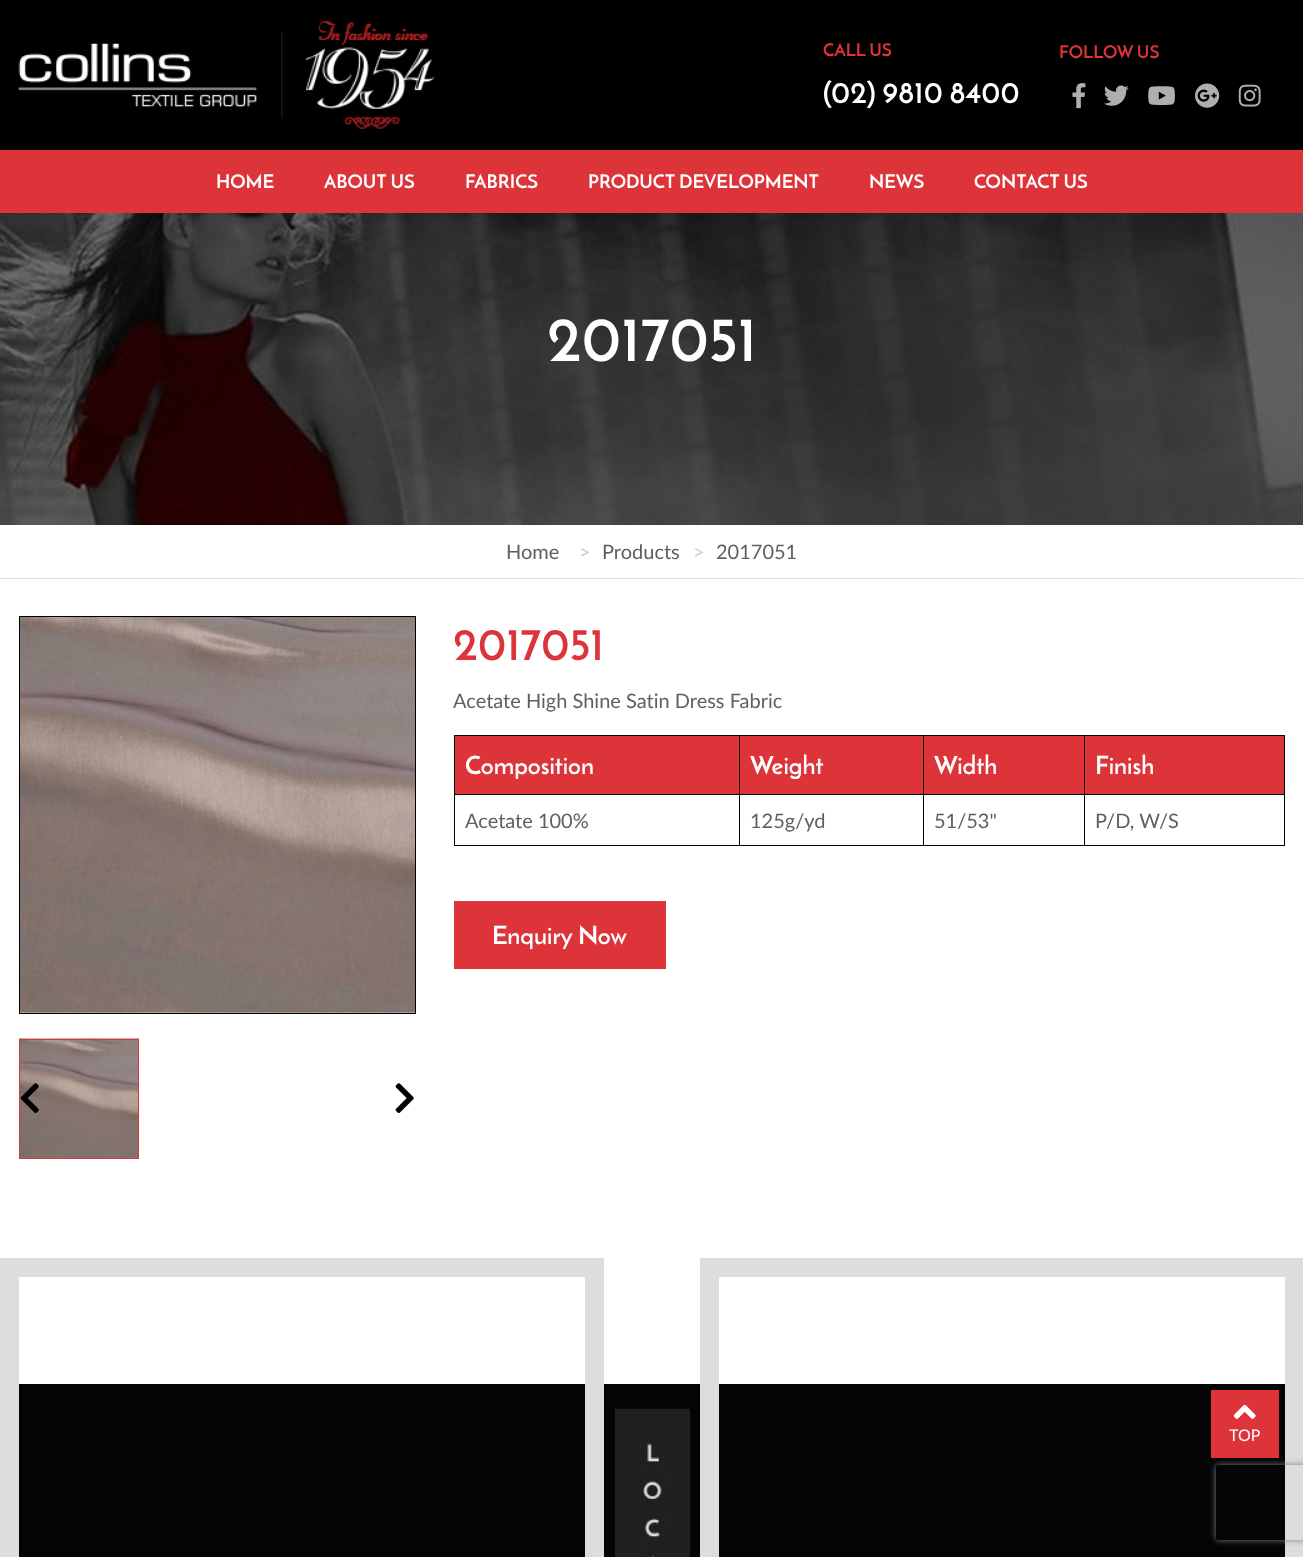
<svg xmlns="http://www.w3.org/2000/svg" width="1303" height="1557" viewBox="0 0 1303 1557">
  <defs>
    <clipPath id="clip1"><path d="M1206 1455H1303V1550H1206ZM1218.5 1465H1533.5C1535 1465 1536 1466 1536 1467.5V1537.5C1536 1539 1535 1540 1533.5 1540H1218.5C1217 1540 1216 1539 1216 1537.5V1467.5C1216 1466 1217 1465 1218.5 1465Z" clip-rule="evenodd"/></clipPath>
    <filter id="blur1" x="-50%" y="-200%" width="200%" height="500%"><feGaussianBlur stdDeviation="3"/></filter>
  </defs>
  <rect width="100%" height="100%" fill="#ffffff"/>
  <rect x="0" y="0" width="1303" height="150" fill="#000000"/>
  <image x="18" y="21" width="417" height="108" href="img1.png"/>
  <text x="823" y="56" font-family="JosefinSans" font-size="17.5" font-weight="bold" fill="#dd343a">CALL US</text>
  <text x="823" y="103" font-family="JosefinSans" font-size="30" font-weight="bold" fill="#ffffff">(02) 9810 8400</text>
  <text x="1059" y="58" font-family="JosefinSans" font-size="17.5" font-weight="bold" fill="#dd343a">FOLLOW US</text>
  <image x="1072" y="83" width="14" height="26" href="img2.png"/>
  <image x="1103" y="85" width="26" height="21" href="img3.png"/>
  <image x="1148" y="86" width="27" height="19" href="img4.png"/>
  <image x="1195" y="83" width="25" height="25" href="img5.png"/>
  <image x="1238" y="84" width="23" height="23" href="img6.png"/>
  <rect x="0" y="150" width="1303" height="63" fill="#dd343a"/>
  <text x="216" y="188" font-family="JosefinSans" font-size="18.75" font-weight="bold" fill="#ffffff">HOME</text>
  <text x="324" y="188" font-family="JosefinSans" font-size="18.75" font-weight="bold" fill="#ffffff">ABOUT US</text>
  <text x="465" y="188" font-family="JosefinSans" font-size="18.75" font-weight="bold" fill="#ffffff">FABRICS</text>
  <text x="588" y="188" font-family="JosefinSans" font-size="18.75" font-weight="bold" fill="#ffffff">PRODUCT DEVELOPMENT</text>
  <text x="869" y="188" font-family="JosefinSans" font-size="18.75" font-weight="bold" fill="#ffffff">NEWS</text>
  <text x="974" y="188" font-family="JosefinSans" font-size="18.75" font-weight="bold" fill="#ffffff">CONTACT US</text>
  <image x="0" y="213" width="1303" height="312" href="img7.png"/>
  <text x="547" y="361" font-family="JosefinSans" font-size="62.5" font-weight="bold" fill="#ffffff">2017051</text>
  <rect x="0" y="578" width="1303" height="1" fill="#dddddd"/>
  <text x="506" y="559" font-family="Lato" font-size="20" fill="#606060">Home</text>
  <text x="579" y="559" font-family="Lato" font-size="20" fill="#cccccc">&gt;</text>
  <text x="602" y="559" font-family="Lato" font-size="20" fill="#606060">Products</text>
  <text x="693" y="559" font-family="Lato" font-size="20" fill="#cccccc">&gt;</text>
  <text x="716" y="559" font-family="Lato" font-size="20" fill="#606060">2017051</text>
  <image x="20" y="617" width="395" height="396" href="img8.png"/>
  <rect x="19.5" y="616.5" width="396" height="397" fill="none" stroke="#000000"/>
  <image x="19" y="1038" width="120" height="120" href="img9.png"/>
  <rect x="19.5" y="1039.5" width="119" height="119" fill="none" stroke="#dd343a"/>
  <image x="20" y="1083" width="19" height="30" href="img10.png"/>
  <image x="395" y="1083" width="19" height="30" href="img11.png"/>
  <text x="453" y="660" font-family="JosefinSans" font-size="45" font-weight="bold" fill="#dd343a">2017051</text>
  <text x="453" y="708" font-family="Lato" font-size="20" fill="#606060">Acetate High Shine Satin Dress Fabric</text>
  <rect x="454" y="735" width="831" height="1" fill="#000000"/>
  <rect x="1284" y="735" width="1" height="111" fill="#000000"/>
  <rect x="454" y="845" width="831" height="1" fill="#000000"/>
  <rect x="454" y="735" width="1" height="111" fill="#000000"/>
  <rect x="455" y="736" width="284" height="58" fill="#dd343a"/>
  <text x="465" y="774" font-family="JosefinSans" font-size="25" font-weight="bold" fill="#ffffff">Composition</text>
  <rect x="740" y="736" width="183" height="58" fill="#dd343a"/>
  <text x="750" y="774" font-family="JosefinSans" font-size="25" font-weight="bold" fill="#ffffff">Weight</text>
  <rect x="924" y="736" width="160" height="58" fill="#dd343a"/>
  <text x="934" y="774" font-family="JosefinSans" font-size="25" font-weight="bold" fill="#ffffff">Width</text>
  <rect x="1085" y="736" width="199" height="58" fill="#dd343a"/>
  <text x="1095" y="774" font-family="JosefinSans" font-size="25" font-weight="bold" fill="#ffffff">Finish</text>
  <rect x="454" y="794" width="831" height="1" fill="#000000"/>
  <text x="465" y="828" font-family="Lato" font-size="20" fill="#606060">Acetate 100%</text>
  <rect x="739" y="735" width="1" height="111" fill="#000000"/>
  <text x="750" y="828" font-family="Lato" font-size="20" fill="#606060">125g/yd</text>
  <rect x="923" y="735" width="1" height="111" fill="#000000"/>
  <text x="934" y="828" font-family="Lato" font-size="20" fill="#606060">51/53"</text>
  <rect x="1084" y="735" width="1" height="111" fill="#000000"/>
  <text x="1095" y="828" font-family="Lato" font-size="20" fill="#606060">P/D, W/S</text>
  <rect x="454" y="901" width="212" height="68" fill="#dd343a"/>
  <text x="492" y="944" font-family="JosefinSans" font-size="25" font-weight="bold" fill="#ffffff">Enquiry Now</text>
  <rect x="19" y="1384" width="1266" height="173" fill="#040404"/>
  <rect x="9.5" y="1267.5" width="585" height="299" fill="none" stroke="#dddddd" stroke-width="19"/>
  <image x="615" y="1408" width="75" height="149" href="img12.png"/>
  <rect x="709.5" y="1267.5" width="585" height="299" fill="none" stroke="#dddddd" stroke-width="19"/>
  <g clip-path="url(#clip1)">
    <rect x="1216" y="1465" width="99" height="75" rx="2.5" fill="#808080" filter="url(#blur1)"/>
  </g>
  <rect x="1211" y="1390" width="68" height="68" fill="#dd343a"/>
  <image x="1233" y="1404" width="23" height="15" href="img13.png"/>
  <text x="1229" y="1441" font-family="Lato" font-size="16" fill="#ffffff">TOP</text>
</svg>
